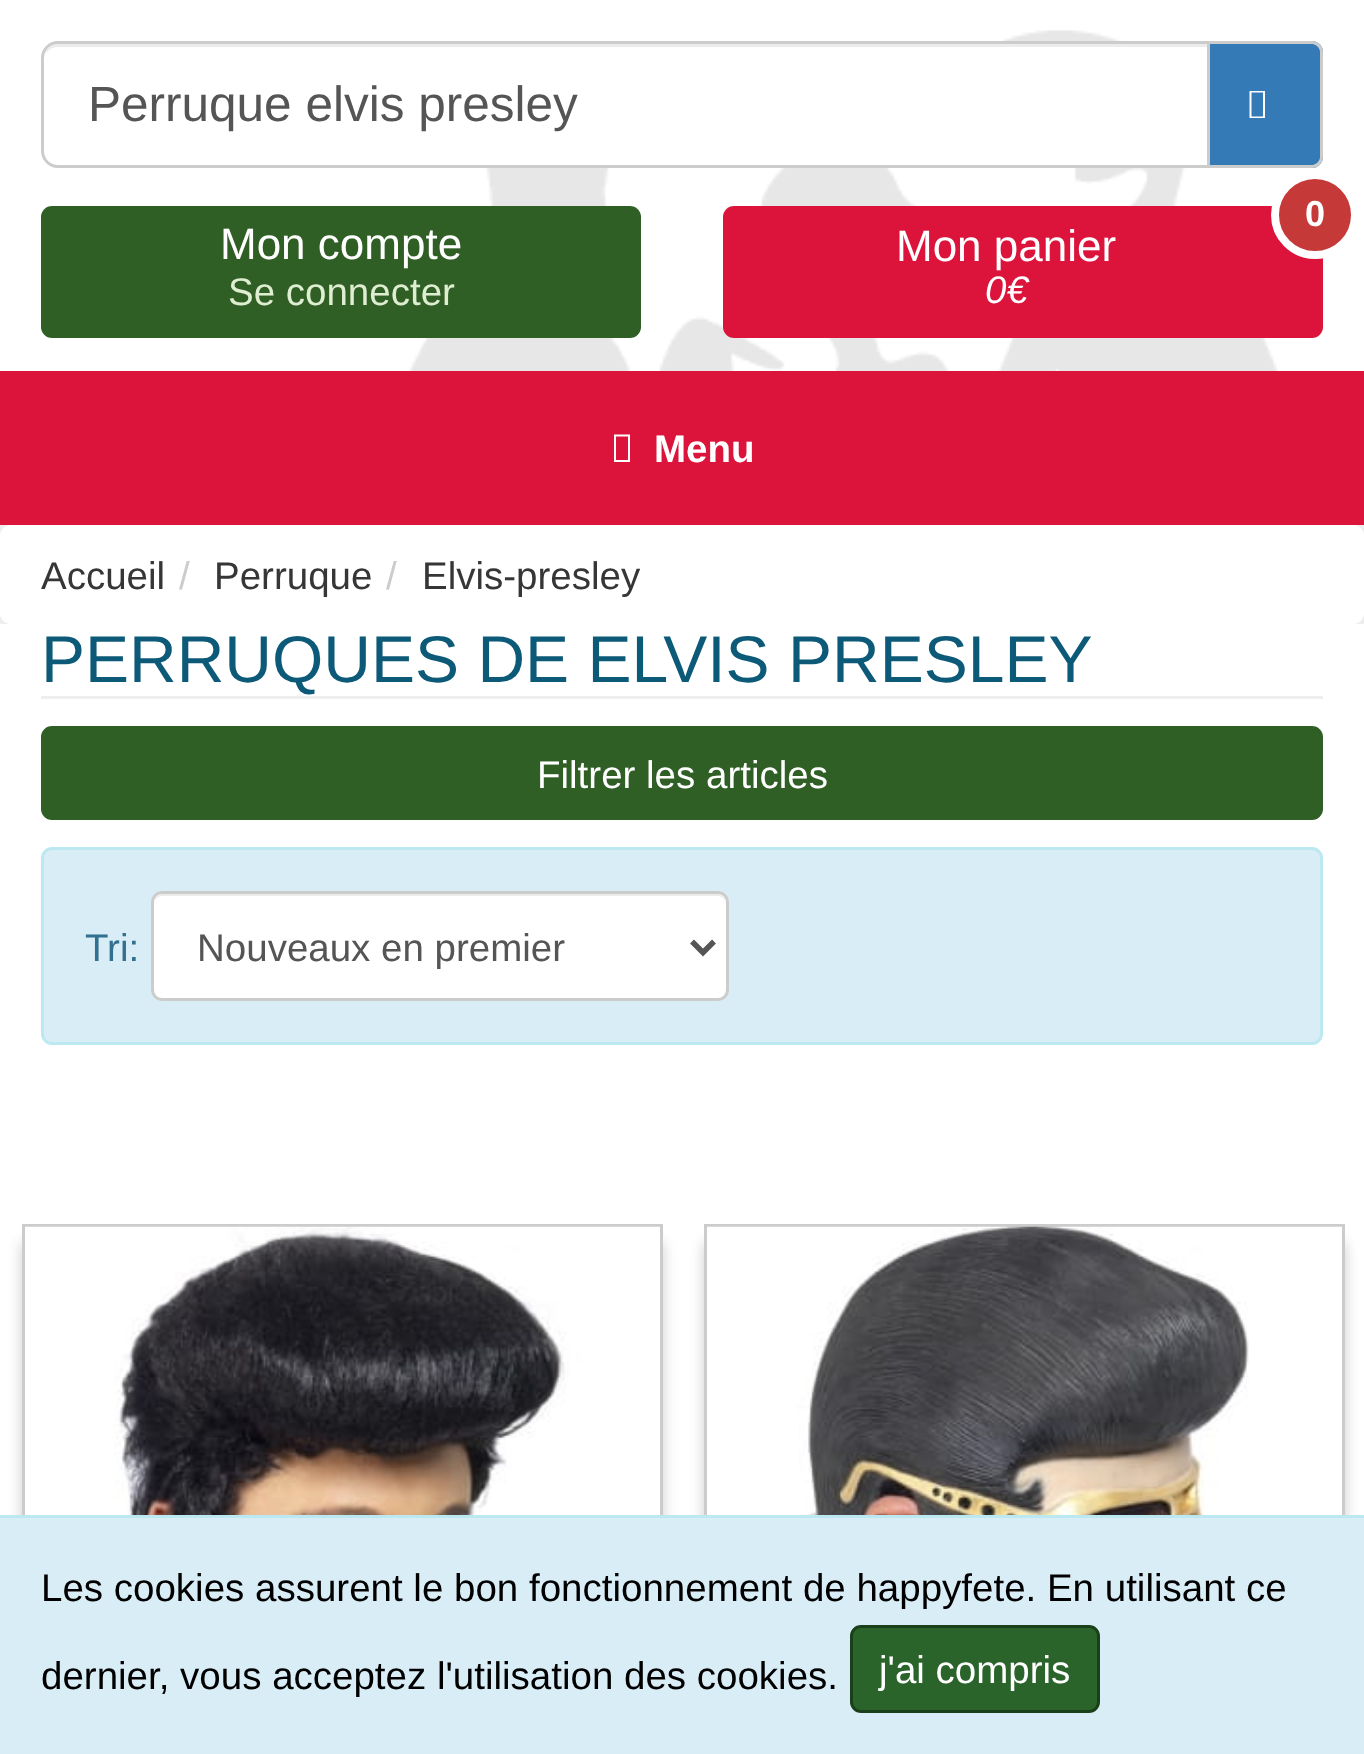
<svg xmlns="http://www.w3.org/2000/svg" width="1364" height="1754" viewBox="0 0 1364 1754">
  <defs>
    <filter id="blur1" x="-50%" y="-200%" width="200%" height="500%"><feGaussianBlur stdDeviation="7"/></filter>
  </defs>
  <rect width="100%" height="100%" fill="#ffffff"/>
  <image x="409" y="30" width="869" height="341" href="img1.png"/>
  <path d="M58 41H1210V168H58C48.5 168 41 160.5 41 151V58C41 48.5 48.5 41 58 41Z" fill="#ffffff"/>
  <path d="M58 47H1207V44H58C49 44 44 52 44 60C44 53 50 47 58 47Z" fill="#ececec"/>
  <path d="M58 42.5H1208.5V166.5H58C49.5 166.5 42.5 159.5 42.5 151V58C42.5 49.5 49.5 42.5 58 42.5Z" fill="none" stroke="#cccccc" stroke-width="3"/>
  <text x="88" y="121" font-family="Liberation Sans" font-size="49.5" fill="#555555">Perruque elvis presley</text>
  <path d="M1210 41H1312C1318 41 1323 46 1323 52V157C1323 163 1318 168 1312 168H1210Z" fill="#337ab7"/>
  <path d="M1210 41H1312C1318 41 1323 46 1323 52V157C1323 163 1318 168 1312 168H1210ZM1210 44H1312C1316 44 1320 48 1320 52V157C1320 161 1316 165 1312 165H1210Z" fill="#cccccc" fill-rule="evenodd"/>
  <path d="M1210 44H1309C1315 44 1320 49 1320 55V154C1320 160 1315 165 1309 165H1210Z" fill="#337ab7"/>
  <path d="M1249.5 118V91H1265V118ZM1251.5 116.5H1263V92.5H1251.5Z" fill="#ffffff"/>
  <rect x="41" y="206" width="600" height="132" rx="11" fill="#305f26"/>
  <text x="220" y="259" font-family="Liberation Sans" font-size="44" fill="#ffffff">Mon compte</text>
  <text x="228" y="305" font-family="Liberation Sans" font-size="38.5" fill="#dfedd1">Se connecter</text>
  <rect x="723" y="206" width="600" height="132" rx="11" fill="#dc143c"/>
  <circle cx="1315" cy="215" r="40" fill="#c53938" stroke="#ffffff" stroke-width="8"/>
  <text x="1305" y="226" font-family="Liberation Sans" font-size="36" font-weight="bold" fill="#ffffff">0</text>
  <text x="896" y="261" font-family="Liberation Sans" font-size="44" fill="#ffffff">Mon panier</text>
  <text x="985" y="303" font-family="Liberation Sans" font-size="38.5" font-style="italic" fill="#ffffff">0€</text>
  <rect x="0" y="371" width="1364" height="154" fill="#dc143c"/>
  <path d="M614 462V434.5H630V462ZM616 460H628V436.5H616Z" fill="#ffffff"/>
  <text x="654" y="462" font-family="Liberation Sans" font-size="38.5" font-weight="bold" fill="#ffffff">Menu</text>
  <rect x="0" y="525" width="1364" height="99" fill="#eeeeee"/>
  <rect x="0" y="525" width="1364" height="99" rx="11" fill="#ffffff"/>
  <text x="41" y="589" font-family="Liberation Sans" font-size="38.5" fill="#363636">Accueil</text>
  <text x="179" y="589" font-family="Liberation Sans" font-size="38.5" fill="#cccccc">/</text>
  <text x="214" y="589" font-family="Liberation Sans" font-size="38.5" fill="#363636">Perruque</text>
  <text x="386" y="589" font-family="Liberation Sans" font-size="38.5" fill="#cccccc">/</text>
  <text x="422" y="589" font-family="Liberation Sans" font-size="38.5" fill="#363636">Elvis-presley</text>
  <rect x="41" y="696" width="1282" height="3" fill="#eeeeee"/>
  <text x="41" y="682" font-family="Liberation Sans" font-size="66" fill="#0d5a78">PERRUQUES DE ELVIS PRESLEY</text>
  <rect x="42.5" y="727.5" width="1279" height="91" rx="9.5" fill="#305f26" stroke="#305f26" stroke-width="3"/>
  <text x="537" y="788" font-family="Liberation Sans" font-size="38.5" fill="#ffffff">Filtrer les articles</text>
  <rect x="42.5" y="848.5" width="1279" height="195" rx="9.5" fill="#d9edf7" stroke="#bce8f1" stroke-width="3"/>
  <text x="85" y="961" font-family="Liberation Sans" font-size="38.5" fill="#31708f">Tri:</text>
  <rect x="151" y="891" width="578" height="110" rx="11" fill="#ffffff"/>
  <path d="M162 896H718C722 896 726 900 726 905C726 900 724 894 718 894H162C156 894 154 900 154 905C154 900 158 896 162 896Z" fill="#ececec"/>
  <rect x="152.5" y="892.5" width="575" height="107" rx="9.5" fill="none" stroke="#cccccc" stroke-width="3"/>
  <path d="M692 941.5L703 952.5L714 941.5" fill="none" stroke="#555555" stroke-width="5.5"/>
  <text x="197" y="961" font-family="Liberation Sans" font-size="38.5" fill="#555555">Nouveaux en premier</text>
  <rect x="22" y="1243" width="641" height="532" fill="#cccccc" filter="url(#blur1)"/>
  <rect x="23.5" y="1225.5" width="638" height="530" fill="none" stroke="#cccccc" stroke-width="3"/>
  <image x="25" y="1226" width="635" height="289" href="img2.png"/>
  <rect x="704" y="1243" width="641" height="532" fill="#cccccc" filter="url(#blur1)"/>
  <rect x="705.5" y="1225.5" width="638" height="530" fill="none" stroke="#cccccc" stroke-width="3"/>
  <image x="707" y="1226" width="635" height="289" href="img3.png"/>
  <rect x="0" y="1518" width="1364" height="236" fill="#d9edf7"/>
  <rect x="0" y="1515" width="1364" height="3" fill="#bce8f1"/>
  <text x="41" y="1601" font-family="Liberation Sans" font-size="38.5" fill="#000000">Les cookies assurent le bon fonctionnement de happyfete. En utilisant ce</text>
  <text x="41" y="1689" font-family="Liberation Sans" font-size="38.5" fill="#000000">dernier, vous acceptez l'utilisation des cookies.</text>
  <rect x="851.5" y="1626.5" width="247" height="85" rx="9.5" fill="#2b642b" stroke="#194019" stroke-width="3"/>
  <text x="879" y="1683" font-family="Liberation Sans" font-size="38.5" fill="#ffffff">j'ai compris</text>
</svg>
